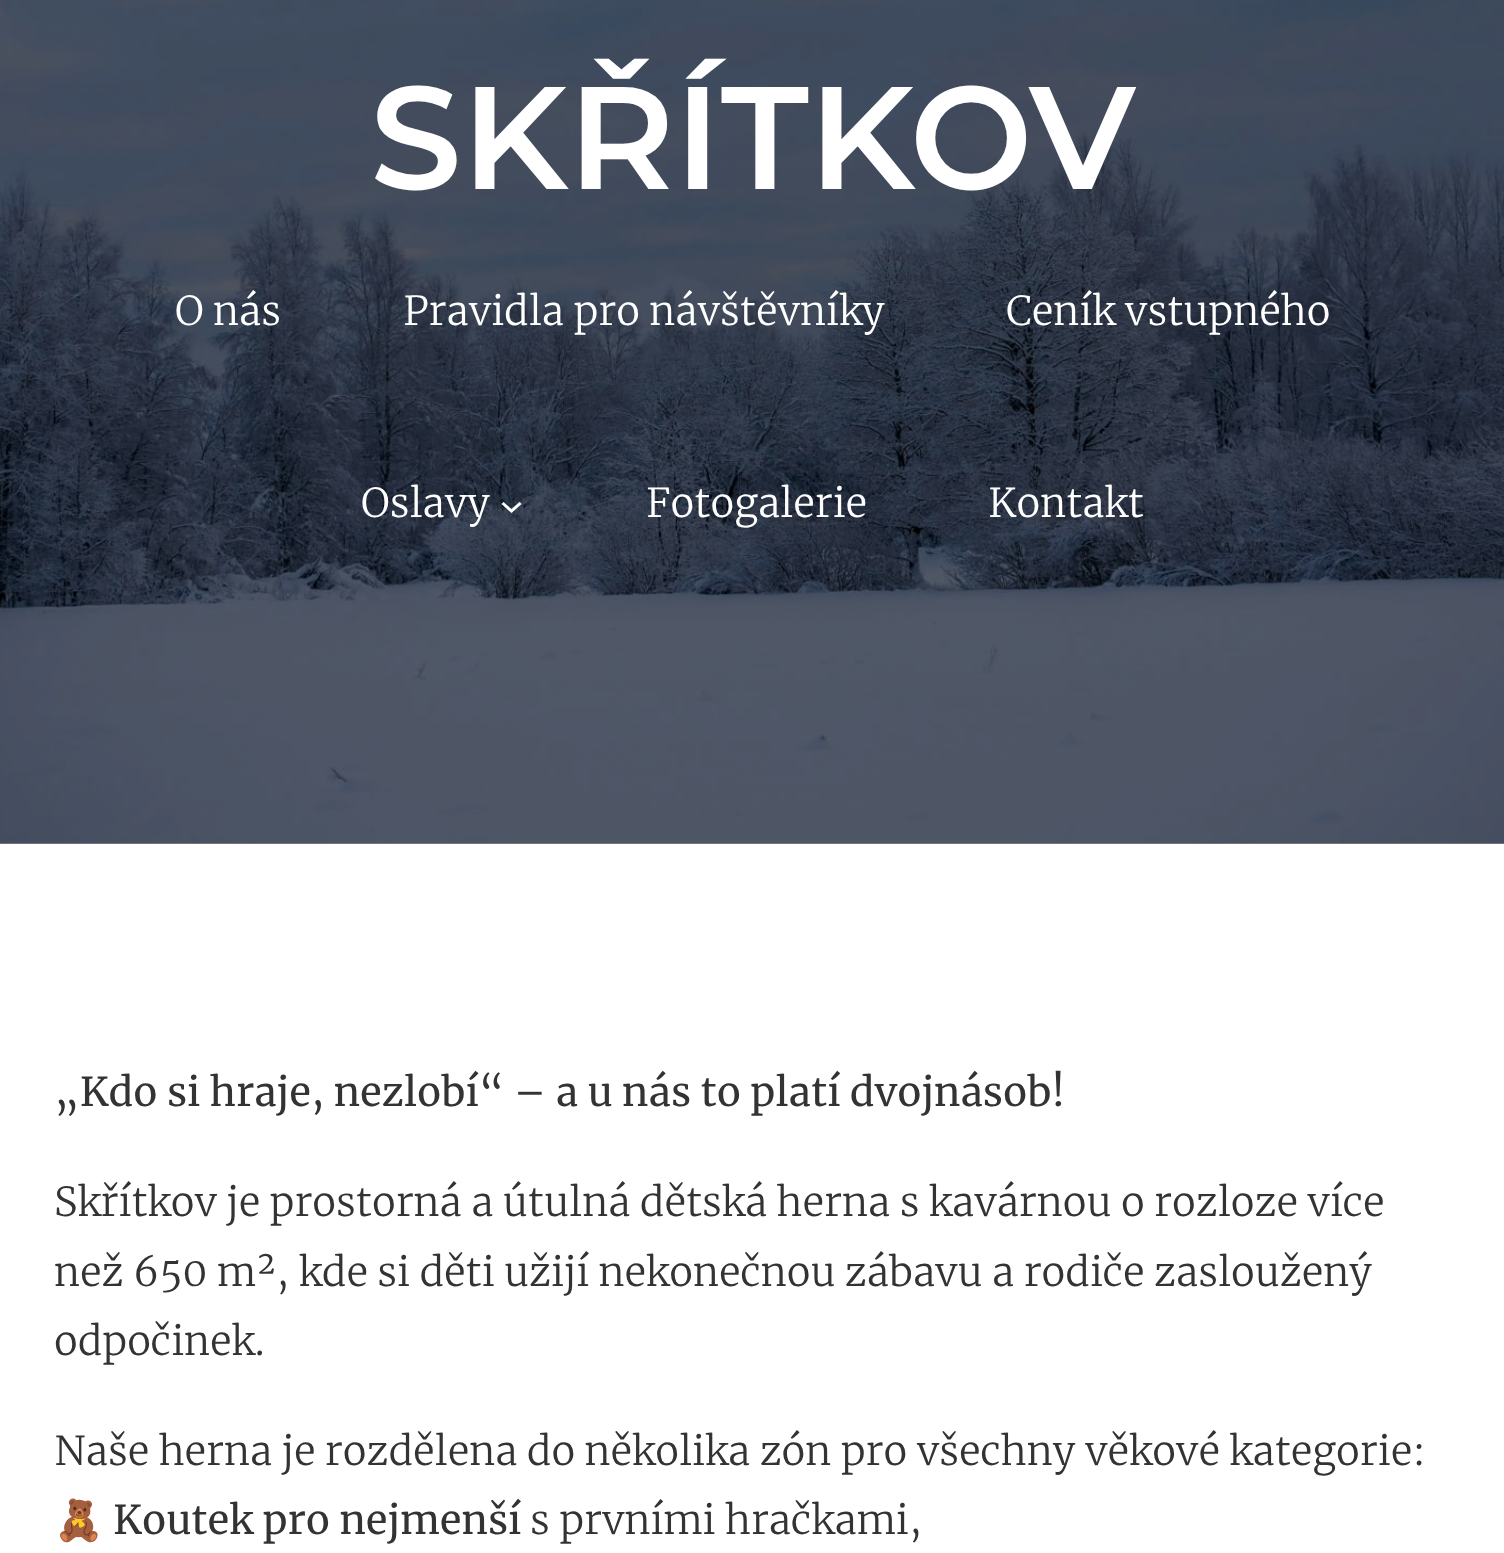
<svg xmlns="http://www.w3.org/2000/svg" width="1504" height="1553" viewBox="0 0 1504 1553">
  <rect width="100%" height="100%" fill="#ffffff"/>
  <rect x="0" y="843" width="1504" height="1" fill="#808080"/>
  <image x="0" y="0" width="1504" height="844" href="img1.png"/>
  <text x="370" y="189" font-family="Montserrat" font-size="145.75" font-weight="600" fill="#ffffff">SKŘÍTKOV</text>
  <text x="175" y="325" font-family="Merriweather" font-size="39.85" font-weight="300" fill="#ffffff">O nás</text>
  <text x="403" y="325" font-family="Merriweather" font-size="39.85" font-weight="300" fill="#ffffff">Pravidla pro návštěvníky</text>
  <text x="1006" y="325" font-family="Merriweather" font-size="39.85" font-weight="300" fill="#ffffff">Ceník vstupného</text>
  <text x="361" y="517" font-family="Merriweather" font-size="39.85" font-weight="300" fill="#ffffff">Oslavy</text>
  <path d="M502.5 503L511.5 511L520.5 503" fill="none" stroke="#ffffff" stroke-width="3"/>
  <text x="646" y="517" font-family="Merriweather" font-size="39.85" font-weight="300" fill="#ffffff">Fotogalerie</text>
  <text x="988" y="517" font-family="Merriweather" font-size="39.85" font-weight="300" fill="#ffffff">Kontakt</text>
  <text x="54" y="1106" font-family="Merriweather" font-size="39.85" fill="#333333">„Kdo si hraje, nezlobí“ – a u nás to platí dvojnásob!</text>
  <text x="54" y="1216" font-family="Merriweather" font-size="39.85" font-weight="300" fill="#333333">Skřítkov je prostorná a útulná dětská herna s kavárnou o rozloze více</text>
  <text x="54" y="1286" font-family="Merriweather" font-size="39.85" font-weight="300" fill="#333333">než 650 m², kde si děti užijí nekonečnou zábavu a rodiče zasloužený</text>
  <text x="54" y="1355" font-family="Merriweather" font-size="39.85" font-weight="300" fill="#333333">odpočinek.</text>
  <text x="54" y="1465" font-family="Merriweather" font-size="39.85" font-weight="300" fill="#333333">Naše herna je rozdělena do několika zón pro všechny věkové kategorie:</text>
  <text x="54" y="1534" font-family="Noto Color Emoji" font-size="39.85" fill="#333333">🧸</text>
  <text x="113" y="1534" font-family="Merriweather" font-size="39.85" fill="#333333">Koutek pro nejmenší</text>
  <text x="530" y="1534" font-family="Merriweather" font-size="39.85" font-weight="300" fill="#333333">s prvními hračkami,</text>
</svg>
